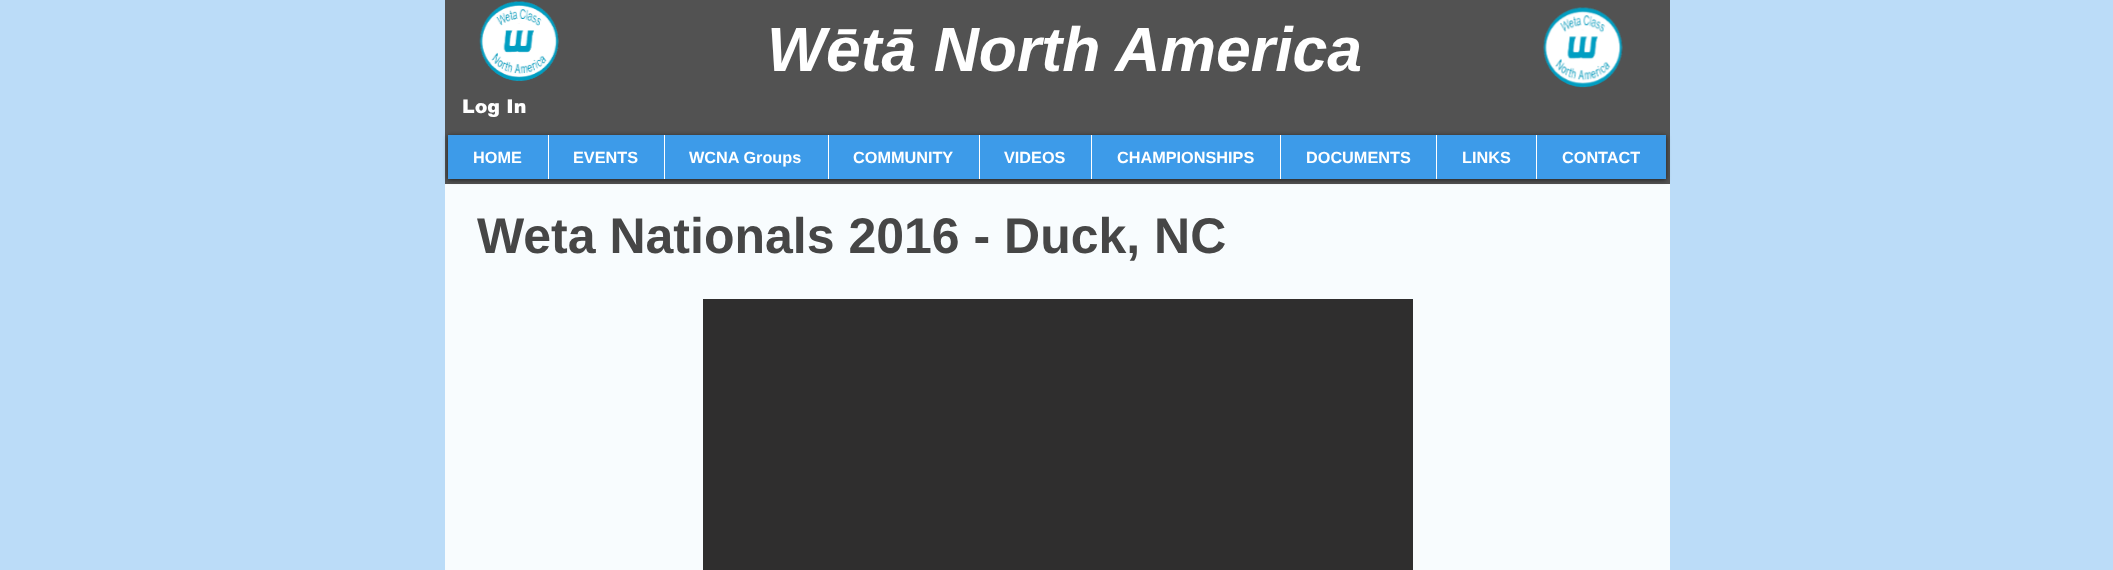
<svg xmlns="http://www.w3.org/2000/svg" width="2113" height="570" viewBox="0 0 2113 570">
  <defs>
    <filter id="blur1" x="-50%" y="-200%" width="200%" height="500%"><feGaussianBlur stdDeviation="2.5"/></filter>
  </defs>
  <rect width="100%" height="100%" fill="#bbdcf8"/>
  <rect x="445" y="0" width="1225" height="184" fill="#525252"/>
  <image x="479" y="1" width="80" height="80" href="img1.png"/>
  <text x="767" y="71" font-family="Liberation Sans" font-size="62.5" font-weight="bold" font-style="italic" fill="#ffffff">Wētā North America</text>
  <image x="1543" y="7" width="80" height="81" href="img2.png"/>
  <text x="462" y="113" font-family="arial" font-size="19" font-weight="900" fill="#ffffff">Log In</text>
  <rect x="445" y="184" width="1225" height="386" fill="#f8fcfe"/>
  <rect x="448" y="136" width="1218" height="44" fill="#000000" fill-opacity="0.6" filter="url(#blur1)"/>
  <rect x="448" y="135" width="1218" height="44" fill="#3d9be9"/>
  <text x="473" y="163" font-family="Liberation Sans" font-size="16.25" font-weight="bold" fill="#ffffff">HOME</text>
  <rect x="548" y="135" width="1" height="44" fill="#ffffff"/>
  <text x="573" y="163" font-family="Liberation Sans" font-size="16.25" font-weight="bold" fill="#ffffff">EVENTS</text>
  <rect x="664" y="135" width="1" height="44" fill="#ffffff"/>
  <text x="689" y="163" font-family="Liberation Sans" font-size="16.25" font-weight="bold" fill="#ffffff">WCNA Groups</text>
  <rect x="828" y="135" width="1" height="44" fill="#ffffff"/>
  <text x="853" y="163" font-family="Liberation Sans" font-size="16.25" font-weight="bold" fill="#ffffff">COMMUNITY</text>
  <rect x="979" y="135" width="1" height="44" fill="#ffffff"/>
  <text x="1004" y="163" font-family="Liberation Sans" font-size="16.25" font-weight="bold" fill="#ffffff">VIDEOS</text>
  <rect x="1091" y="135" width="1" height="44" fill="#ffffff"/>
  <text x="1117" y="163" font-family="Liberation Sans" font-size="16.25" font-weight="bold" fill="#ffffff">CHAMPIONSHIPS</text>
  <rect x="1280" y="135" width="1" height="44" fill="#ffffff"/>
  <text x="1306" y="163" font-family="Liberation Sans" font-size="16.25" font-weight="bold" fill="#ffffff">DOCUMENTS</text>
  <rect x="1436" y="135" width="1" height="44" fill="#ffffff"/>
  <text x="1462" y="163" font-family="Liberation Sans" font-size="16.25" font-weight="bold" fill="#ffffff">LINKS</text>
  <rect x="1536" y="135" width="1" height="44" fill="#ffffff"/>
  <text x="1562" y="163" font-family="Liberation Sans" font-size="16.25" font-weight="bold" fill="#ffffff">CONTACT</text>
  <text x="477" y="253" font-family="Liberation Sans" font-size="50" font-weight="bold" fill="#464646">Weta Nationals 2016 - Duck, NC</text>
  <rect x="703" y="299" width="710" height="271" fill="#2f2e2e"/>
</svg>
